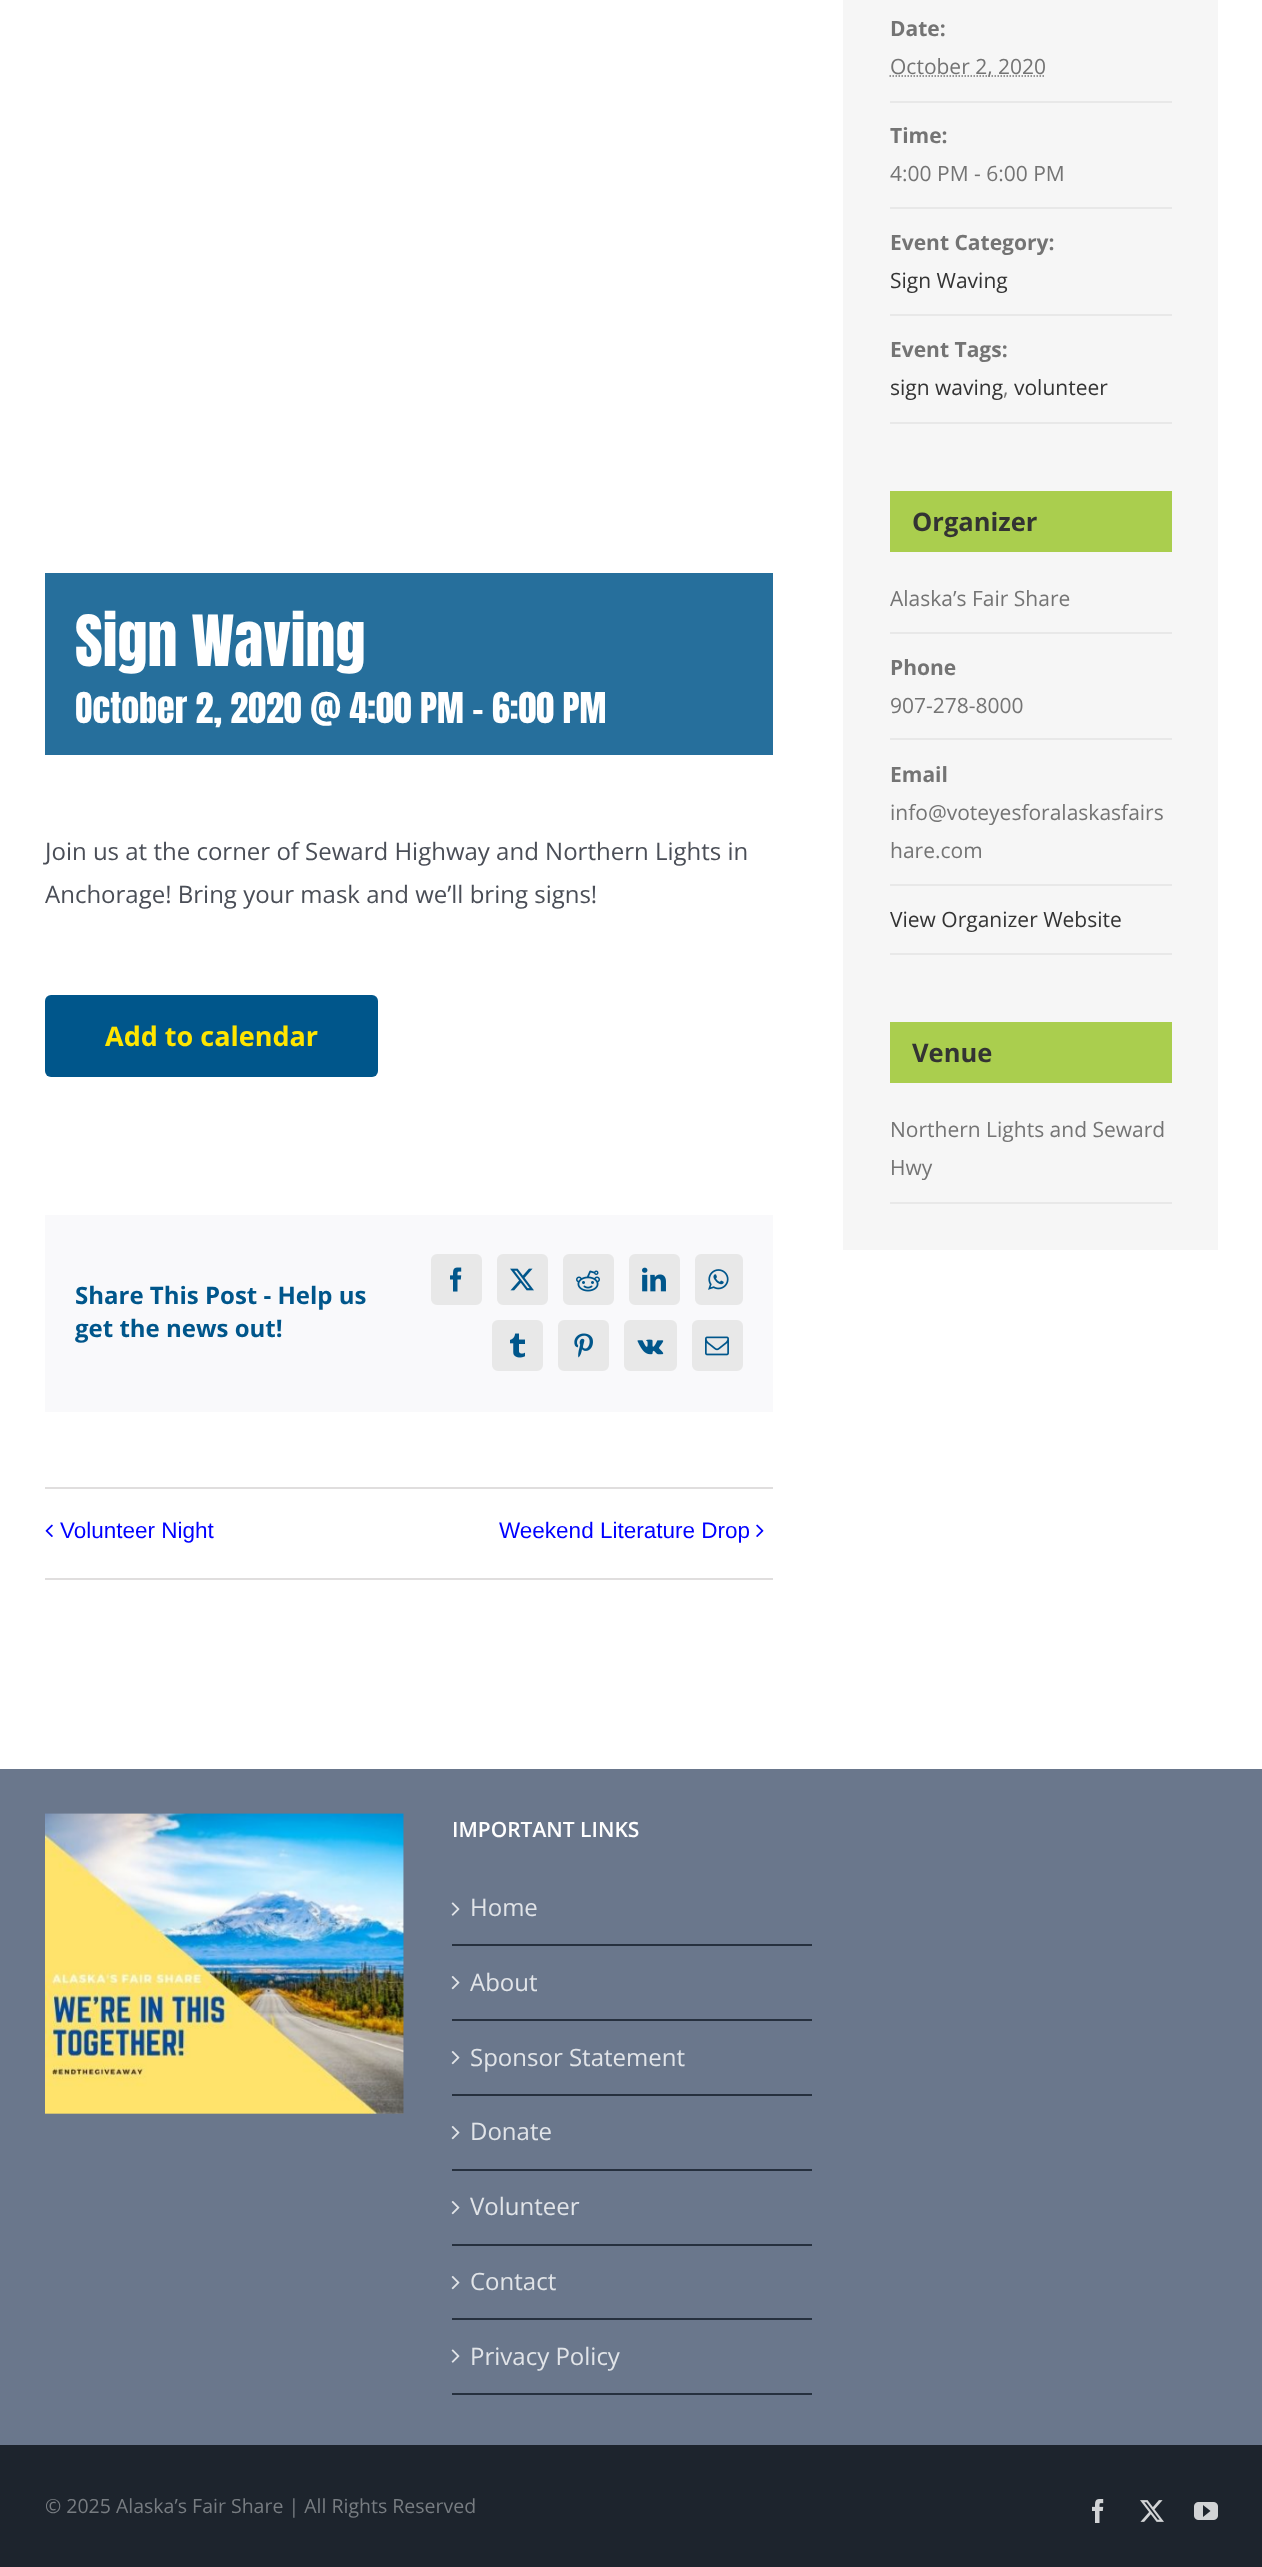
<svg xmlns="http://www.w3.org/2000/svg" width="1262" height="2567" viewBox="0 0 1262 2567">
  <rect width="100%" height="100%" fill="#ffffff"/>
  <rect x="45" y="573" width="728" height="182" fill="#266f9c"/>
  <text x="75" y="666" font-family="Anton" font-size="60" fill="#ffffff">Sign Waving</text>
  <text x="75" y="723" font-family="Anton" font-size="36" fill="#ffffff">October 2, 2020 @ 4:00 PM - 6:00 PM</text>
  <text x="45" y="860" font-family="Open Sans" font-size="24" fill="#4a4e57">Join us at the corner of Seward Highway and Northern Lights in</text>
  <text x="45" y="903" font-family="Open Sans" font-size="24" fill="#4a4e57">Anchorage! Bring your mask and we’ll bring signs!</text>
  <rect x="45" y="995" width="333" height="82" rx="6" fill="#00568b"/>
  <text x="105" y="1046" font-family="Open Sans" font-size="27" font-weight="bold" fill="#ffe500">Add to calendar</text>
  <rect x="45" y="1215" width="728" height="197" fill="#f9f9fb"/>
  <text x="75" y="1304" font-family="Open Sans" font-size="24" font-weight="bold" fill="#00568b">Share This Post - Help us</text>
  <text x="75" y="1337" font-family="Open Sans" font-size="24" font-weight="bold" fill="#00568b">get the news out!</text>
  <rect x="432" y="1255" width="49" height="49" rx="5" fill="#e8e8e8" stroke="#e8e8e8" stroke-width="2"/>
  <image x="450" y="1267" width="12" height="25" href="img1.png"/>
  <rect x="498" y="1255" width="49" height="49" rx="5" fill="#e8e8e8" stroke="#e8e8e8" stroke-width="2"/>
  <image x="510" y="1268" width="24" height="23" href="img2.png"/>
  <rect x="564" y="1255" width="49" height="49" rx="5" fill="#e8e8e8" stroke="#e8e8e8" stroke-width="2"/>
  <image x="576" y="1270" width="24" height="22" href="img3.png"/>
  <rect x="630" y="1255" width="49" height="49" rx="5" fill="#e8e8e8" stroke="#e8e8e8" stroke-width="2"/>
  <image x="642" y="1267" width="24" height="25" href="img4.png"/>
  <rect x="696" y="1255" width="46" height="49" rx="5" fill="#e8e8e8" stroke="#e8e8e8" stroke-width="2"/>
  <image x="708" y="1269" width="21" height="21" href="img5.png"/>
  <rect x="493" y="1321" width="49" height="49" rx="5" fill="#e8e8e8" stroke="#e8e8e8" stroke-width="2"/>
  <image x="510" y="1333" width="15" height="25" href="img6.png"/>
  <rect x="559" y="1321" width="49" height="49" rx="5" fill="#e8e8e8" stroke="#e8e8e8" stroke-width="2"/>
  <image x="574" y="1333" width="19" height="25" href="img7.png"/>
  <rect x="625" y="1321" width="51" height="49" rx="5" fill="#e8e8e8" stroke="#e8e8e8" stroke-width="2"/>
  <image x="637" y="1339" width="27" height="16" href="img8.png"/>
  <rect x="693" y="1321" width="49" height="49" rx="5" fill="#e8e8e8" stroke="#e8e8e8" stroke-width="2"/>
  <image x="705" y="1336" width="24" height="20" href="img9.png"/>
  <rect x="45" y="1487" width="728" height="2" fill="#e0dede"/>
  <rect x="45" y="1578" width="728" height="2" fill="#e0dede"/>
  <image x="45" y="1524" width="8" height="13" href="img10.png"/>
  <text x="60" y="1538" font-family="Liberation Sans" font-size="22.5" fill="#0000ff">Volunteer Night</text>
  <text x="499" y="1538" font-family="Liberation Sans" font-size="22.5" fill="#0000ff">Weekend Literature Drop</text>
  <image x="756" y="1524" width="8" height="13" href="img11.png"/>
  <rect x="843" y="0" width="375" height="1250" fill="#f6f6f6"/>
  <text x="890" y="36" font-family="Open Sans" font-size="21" font-weight="bold" fill="#747474">Date:</text>
  <rect x="890" y="101" width="282" height="2" fill="#e8e8e8"/>
  <path d="M889.5 76H1045.5" fill="none" stroke="#747474" stroke-width="1.5" stroke-dasharray="1.5 1.5"/>
  <text x="890" y="74" font-family="Open Sans" font-size="21" fill="#747474">October 2, 2020</text>
  <text x="890" y="143" font-family="Open Sans" font-size="21" font-weight="bold" fill="#747474">Time:</text>
  <rect x="890" y="207" width="282" height="2" fill="#e8e8e8"/>
  <text x="890" y="181" font-family="Open Sans" font-size="21" fill="#747474">4:00 PM - 6:00 PM</text>
  <text x="890" y="250" font-family="Open Sans" font-size="21" font-weight="bold" fill="#747474">Event Category:</text>
  <rect x="890" y="314" width="282" height="2" fill="#e8e8e8"/>
  <text x="890" y="288" font-family="Open Sans" font-size="21" fill="#333333">Sign Waving</text>
  <text x="890" y="357" font-family="Open Sans" font-size="21" font-weight="bold" fill="#747474">Event Tags:</text>
  <rect x="890" y="422" width="282" height="2" fill="#e8e8e8"/>
  <text x="890" y="395" font-family="Open Sans" font-size="21" fill="#333333">sign waving</text>
  <text x="1003" y="395" font-family="Open Sans" font-size="21" fill="#747474">,</text>
  <text x="1014" y="395" font-family="Open Sans" font-size="21" fill="#333333">volunteer</text>
  <rect x="890" y="491" width="282" height="61" fill="#aace4e"/>
  <text x="912" y="531" font-family="Open Sans" font-size="25.5" font-weight="bold" fill="#333333">Organizer</text>
  <rect x="890" y="632" width="282" height="2" fill="#e8e8e8"/>
  <text x="890" y="606" font-family="Open Sans" font-size="21" fill="#747474">Alaska’s Fair Share</text>
  <text x="890" y="675" font-family="Open Sans" font-size="21" font-weight="bold" fill="#747474">Phone</text>
  <rect x="890" y="738" width="282" height="2" fill="#e8e8e8"/>
  <text x="890" y="713" font-family="Open Sans" font-size="21" fill="#747474">907-278-8000</text>
  <text x="890" y="782" font-family="Open Sans" font-size="21" font-weight="bold" fill="#747474">Email</text>
  <rect x="890" y="884" width="282" height="2" fill="#e8e8e8"/>
  <text x="890" y="820" font-family="Open Sans" font-size="21" fill="#747474">info@voteyesforalaskasfairs</text>
  <text x="890" y="858" font-family="Open Sans" font-size="21" fill="#747474">hare.com</text>
  <rect x="890" y="953" width="282" height="2" fill="#e8e8e8"/>
  <text x="890" y="927" font-family="Open Sans" font-size="21" fill="#333333">View Organizer Website</text>
  <rect x="890" y="1022" width="282" height="61" fill="#aace4e"/>
  <text x="912" y="1062" font-family="Open Sans" font-size="25.5" font-weight="bold" fill="#333333">Venue</text>
  <rect x="890" y="1202" width="282" height="2" fill="#e8e8e8"/>
  <text x="890" y="1137" font-family="Open Sans" font-size="21" fill="#747474">Northern Lights and Seward</text>
  <text x="890" y="1175" font-family="Open Sans" font-size="21" fill="#747474">Hwy</text>
  <rect x="0" y="1769" width="1262" height="676" fill="#6a778c"/>
  <image x="45" y="1813" width="359" height="301" href="img12.png"/>
  <text x="452" y="1837" font-family="Open Sans" font-size="21" font-weight="600" fill="#ffffff">IMPORTANT LINKS</text>
  <rect x="452" y="1944" width="360" height="2" fill="#26303e"/>
  <image x="451" y="1902" width="9" height="14" href="img13.png"/>
  <text x="470" y="1916" font-family="Open Sans" font-size="24" fill="#e1e4e8">Home</text>
  <rect x="452" y="2019" width="360" height="2" fill="#26303e"/>
  <image x="451" y="1976" width="9" height="14" href="img14.png"/>
  <text x="470" y="1991" font-family="Open Sans" font-size="24" fill="#e1e4e8">About</text>
  <rect x="452" y="2094" width="360" height="2" fill="#26303e"/>
  <image x="451" y="2051" width="9" height="14" href="img14.png"/>
  <text x="470" y="2066" font-family="Open Sans" font-size="24" fill="#e1e4e8">Sponsor Statement</text>
  <rect x="452" y="2169" width="360" height="2" fill="#26303e"/>
  <image x="451" y="2126" width="9" height="14" href="img14.png"/>
  <text x="470" y="2140" font-family="Open Sans" font-size="24" fill="#e1e4e8">Donate</text>
  <rect x="452" y="2244" width="360" height="2" fill="#26303e"/>
  <image x="451" y="2201" width="9" height="14" href="img14.png"/>
  <text x="470" y="2215" font-family="Open Sans" font-size="24" fill="#e1e4e8">Volunteer</text>
  <rect x="452" y="2318" width="360" height="2" fill="#26303e"/>
  <image x="451" y="2276" width="9" height="14" href="img14.png"/>
  <text x="470" y="2290" font-family="Open Sans" font-size="24" fill="#e1e4e8">Contact</text>
  <rect x="452" y="2393" width="360" height="2" fill="#26303e"/>
  <image x="451" y="2349" width="9" height="14" href="img13.png"/>
  <text x="470" y="2365" font-family="Open Sans" font-size="24" fill="#e1e4e8">Privacy Policy</text>
  <rect x="0" y="2445" width="1262" height="122" fill="#1d242d"/>
  <text x="45" y="2513" font-family="Open Sans" font-size="19.5" fill="#777c81">© 2025 Alaska’s Fair Share | All Rights Reserved</text>
  <image x="1092" y="2499" width="12" height="24" href="img15.png"/>
  <image x="1140" y="2500" width="24" height="22" href="img16.png"/>
  <image x="1194" y="2502" width="24" height="18" href="img17.png"/>
</svg>
